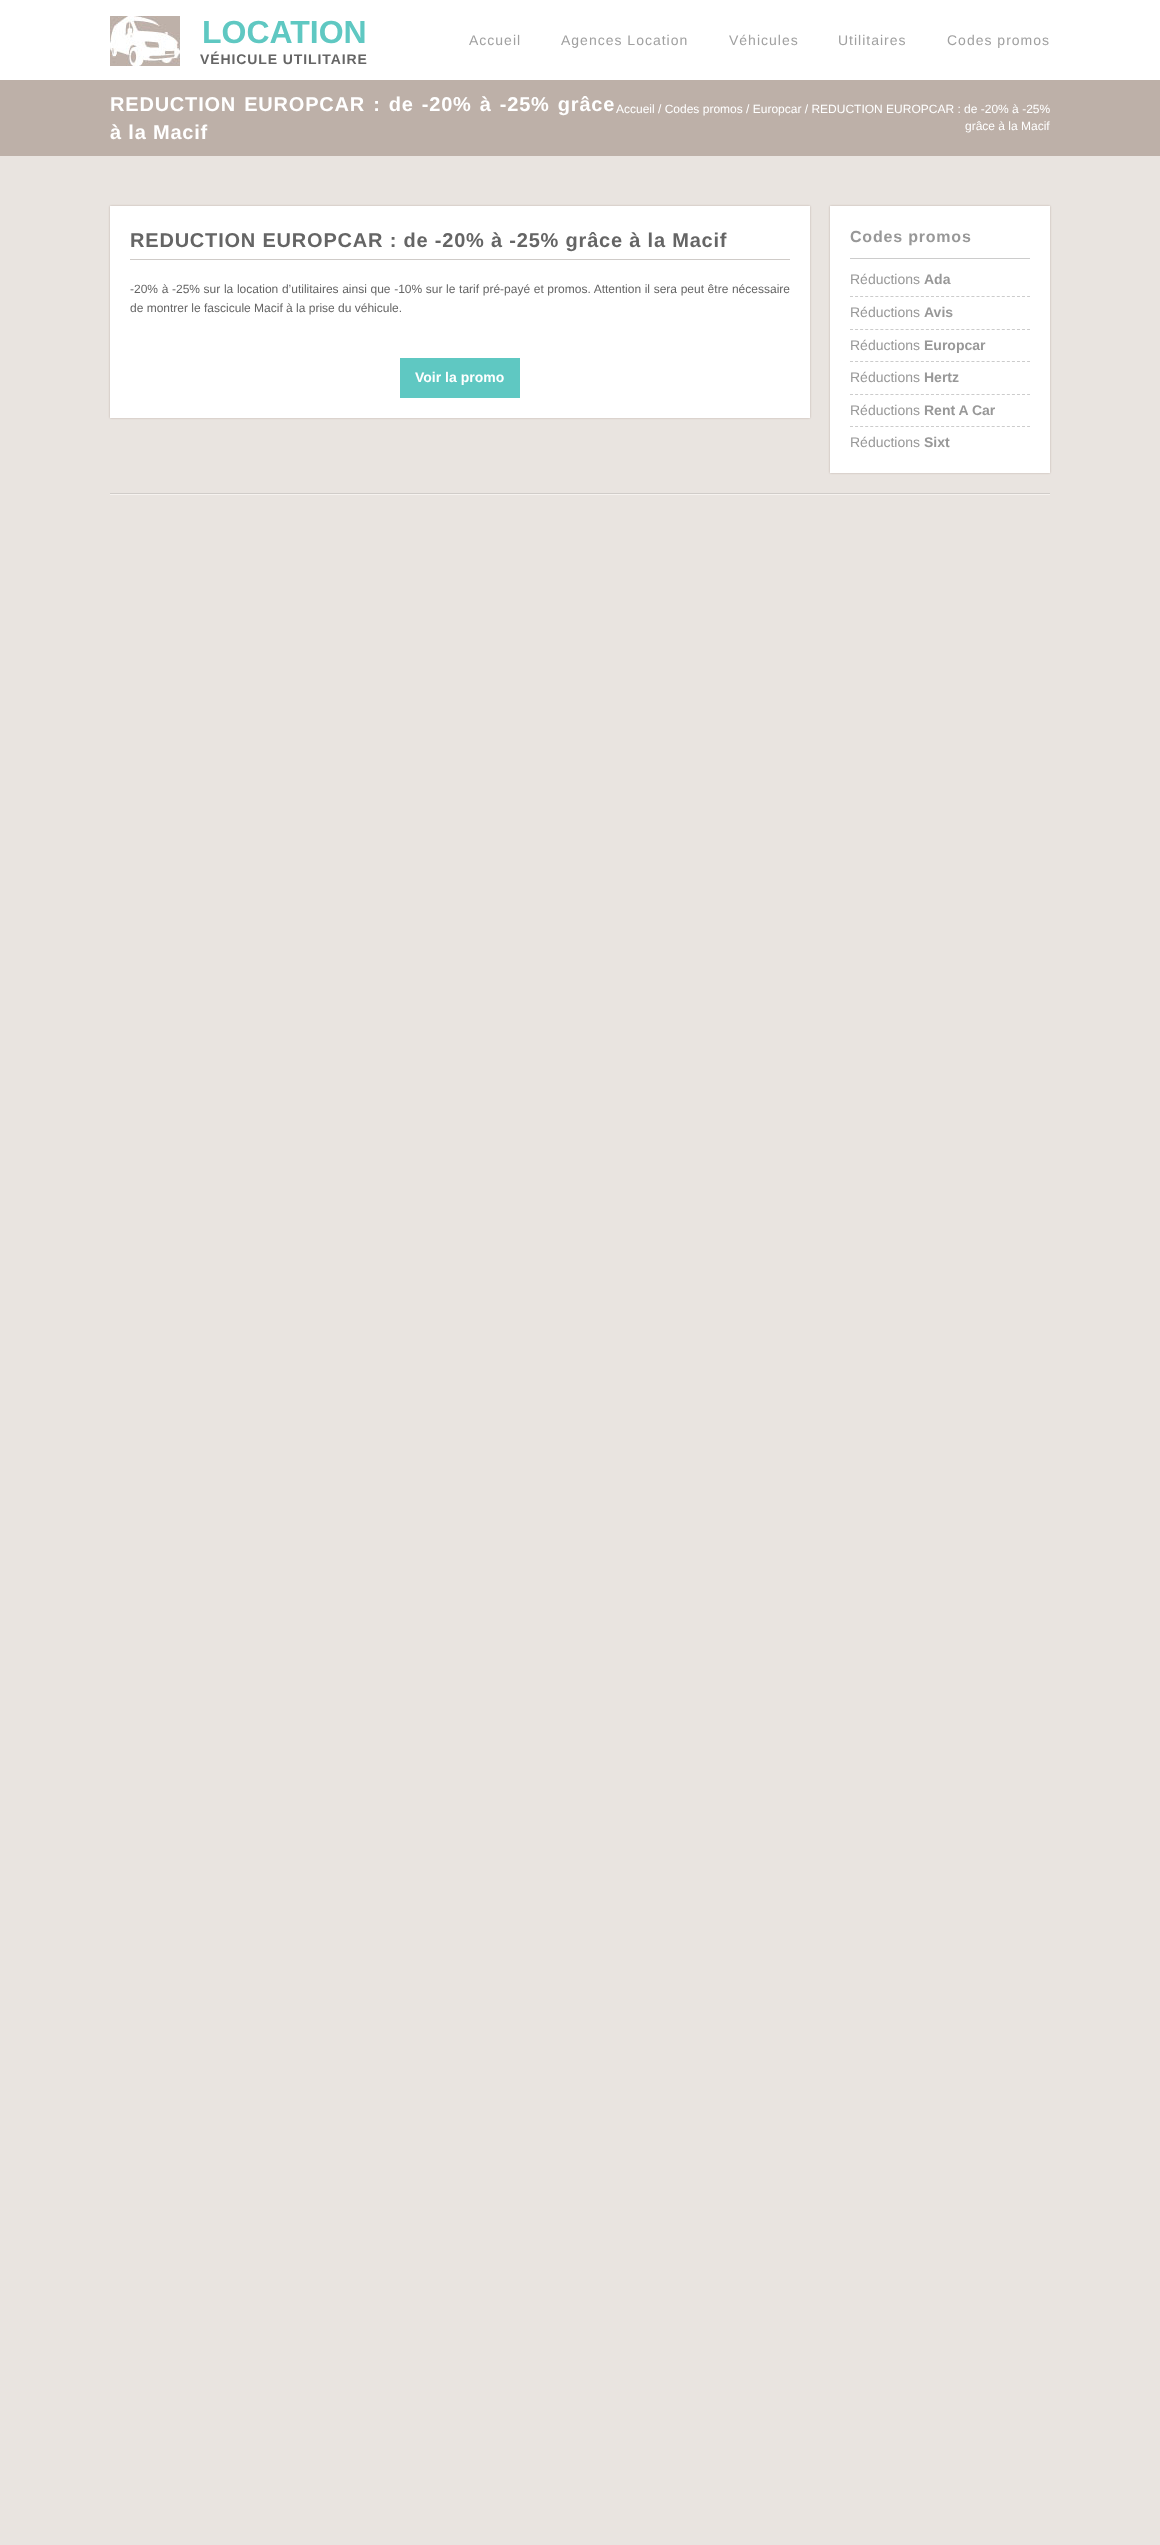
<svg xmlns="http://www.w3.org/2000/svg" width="1160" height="2545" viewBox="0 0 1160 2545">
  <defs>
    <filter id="blur1" x="-50%" y="-200%" width="200%" height="500%"><feGaussianBlur stdDeviation="1"/></filter>
  </defs>
  <rect width="100%" height="100%" fill="#e9e4e0"/>
  <rect x="0" y="0" width="1160" height="80" fill="#ffffff"/>
  <image x="110" y="16" width="70" height="50" href="img1.png"/>
  <text x="202" y="43" font-family="Liberation Sans" font-size="32" font-weight="bold" fill="#5fc8c2">LOCATION</text>
  <text x="200" y="64" font-family="Liberation Sans" font-size="14" font-weight="bold" letter-spacing="0.9" fill="#656565">VÉHICULE UTILITAIRE</text>
  <text x="469" y="45" font-family="Liberation Sans" font-size="14" letter-spacing="1" fill="#a0a0a0">Accueil</text>
  <text x="561" y="45" font-family="Liberation Sans" font-size="14" letter-spacing="1" fill="#a0a0a0">Agences Location</text>
  <text x="729" y="45" font-family="Liberation Sans" font-size="14" letter-spacing="1" fill="#a0a0a0">Véhicules</text>
  <text x="838" y="45" font-family="Liberation Sans" font-size="14" letter-spacing="1" fill="#a0a0a0">Utilitaires</text>
  <text x="947" y="45" font-family="Liberation Sans" font-size="14" letter-spacing="1" fill="#a0a0a0">Codes promos</text>
  <rect x="0" y="80" width="1160" height="76" fill="#bdb0a8"/>
  <text x="110" y="111" word-spacing="1.75" font-family="Liberation Sans" font-size="20" font-weight="bold" letter-spacing="0.8" fill="#ffffff">REDUCTION EUROPCAR : de -20% à -25% grâce</text>
  <text x="110" y="139" font-family="Liberation Sans" font-size="20" font-weight="bold" letter-spacing="0.8" fill="#ffffff">à la Macif</text>
  <text x="616" y="113" font-family="Liberation Sans" font-size="12" fill="#ffffff">Accueil / Codes promos / Europcar / REDUCTION EUROPCAR : de -20% à -25%</text>
  <text x="965" y="130" font-family="Liberation Sans" font-size="12" fill="#ffffff">grâce à la Macif</text>
  <rect x="110" y="206" width="700" height="212" fill="#beb1a9" filter="url(#blur1)"/>
  <rect x="110" y="206" width="700" height="212" fill="#ffffff"/>
  <rect x="130" y="259" width="660" height="1" fill="#cfcbc8"/>
  <text x="130" y="247" font-family="Liberation Sans" font-size="20" font-weight="bold" letter-spacing="0.8" fill="#656565">REDUCTION EUROPCAR : de -20% à -25% grâce à la Macif</text>
  <text x="130" y="293" word-spacing="0.3" font-family="Liberation Sans" font-size="12" fill="#656565">-20% à -25% sur la location d’utilitaires ainsi que -10% sur le tarif pré-payé et promos. Attention il sera peut être nécessaire</text>
  <text x="130" y="312" font-family="Liberation Sans" font-size="12" fill="#656565">de montrer le fascicule Macif à la prise du véhicule.</text>
  <rect x="400" y="358" width="120" height="40" fill="#5fc8c2"/>
  <text x="415" y="382" font-family="Liberation Sans" font-size="14" font-weight="bold" fill="#ffffff">Voir la promo</text>
  <rect x="830" y="206" width="220" height="267" fill="#beb1a9" filter="url(#blur1)"/>
  <rect x="830" y="206" width="220" height="267" fill="#ffffff"/>
  <rect x="850" y="258" width="180" height="1" fill="#cccccc"/>
  <text x="850" y="242" font-family="Liberation Sans" font-size="16" font-weight="bold" letter-spacing="0.8" fill="#989898">Codes promos</text>
  <path d="M850 296.5H1030" fill="none" stroke="#cccccc" stroke-dasharray="3 2.06"/>
  <text x="850" y="284" font-family="Liberation Sans" font-size="14" fill="#989898">Réductions</text>
  <text x="924" y="284" font-family="Liberation Sans" font-size="14" font-weight="bold" fill="#989898">Ada</text>
  <path d="M850 329.5H1030" fill="none" stroke="#cccccc" stroke-dasharray="3 2.06"/>
  <text x="850" y="317" font-family="Liberation Sans" font-size="14" fill="#989898">Réductions</text>
  <text x="924" y="317" font-family="Liberation Sans" font-size="14" font-weight="bold" fill="#989898">Avis</text>
  <path d="M850 361.5H1030" fill="none" stroke="#cccccc" stroke-dasharray="3 2.06"/>
  <text x="850" y="350" font-family="Liberation Sans" font-size="14" fill="#989898">Réductions</text>
  <text x="924" y="350" font-family="Liberation Sans" font-size="14" font-weight="bold" fill="#989898">Europcar</text>
  <path d="M850 394.5H1030" fill="none" stroke="#cccccc" stroke-dasharray="3 2.06"/>
  <text x="850" y="382" font-family="Liberation Sans" font-size="14" fill="#989898">Réductions</text>
  <text x="924" y="382" font-family="Liberation Sans" font-size="14" font-weight="bold" fill="#989898">Hertz</text>
  <path d="M850 426.5H1030" fill="none" stroke="#cccccc" stroke-dasharray="3 2.06"/>
  <text x="850" y="415" font-family="Liberation Sans" font-size="14" fill="#989898">Réductions</text>
  <text x="924" y="415" font-family="Liberation Sans" font-size="14" font-weight="bold" fill="#989898">Rent A Car</text>
  <text x="850" y="447" font-family="Liberation Sans" font-size="14" fill="#989898">Réductions</text>
  <text x="924" y="447" font-family="Liberation Sans" font-size="14" font-weight="bold" fill="#989898">Sixt</text>
  <rect x="110" y="494" width="940" height="1" fill="#f6f2ef"/>
  <rect x="110" y="493" width="940" height="1" fill="#d0ccc9"/>
</svg>
